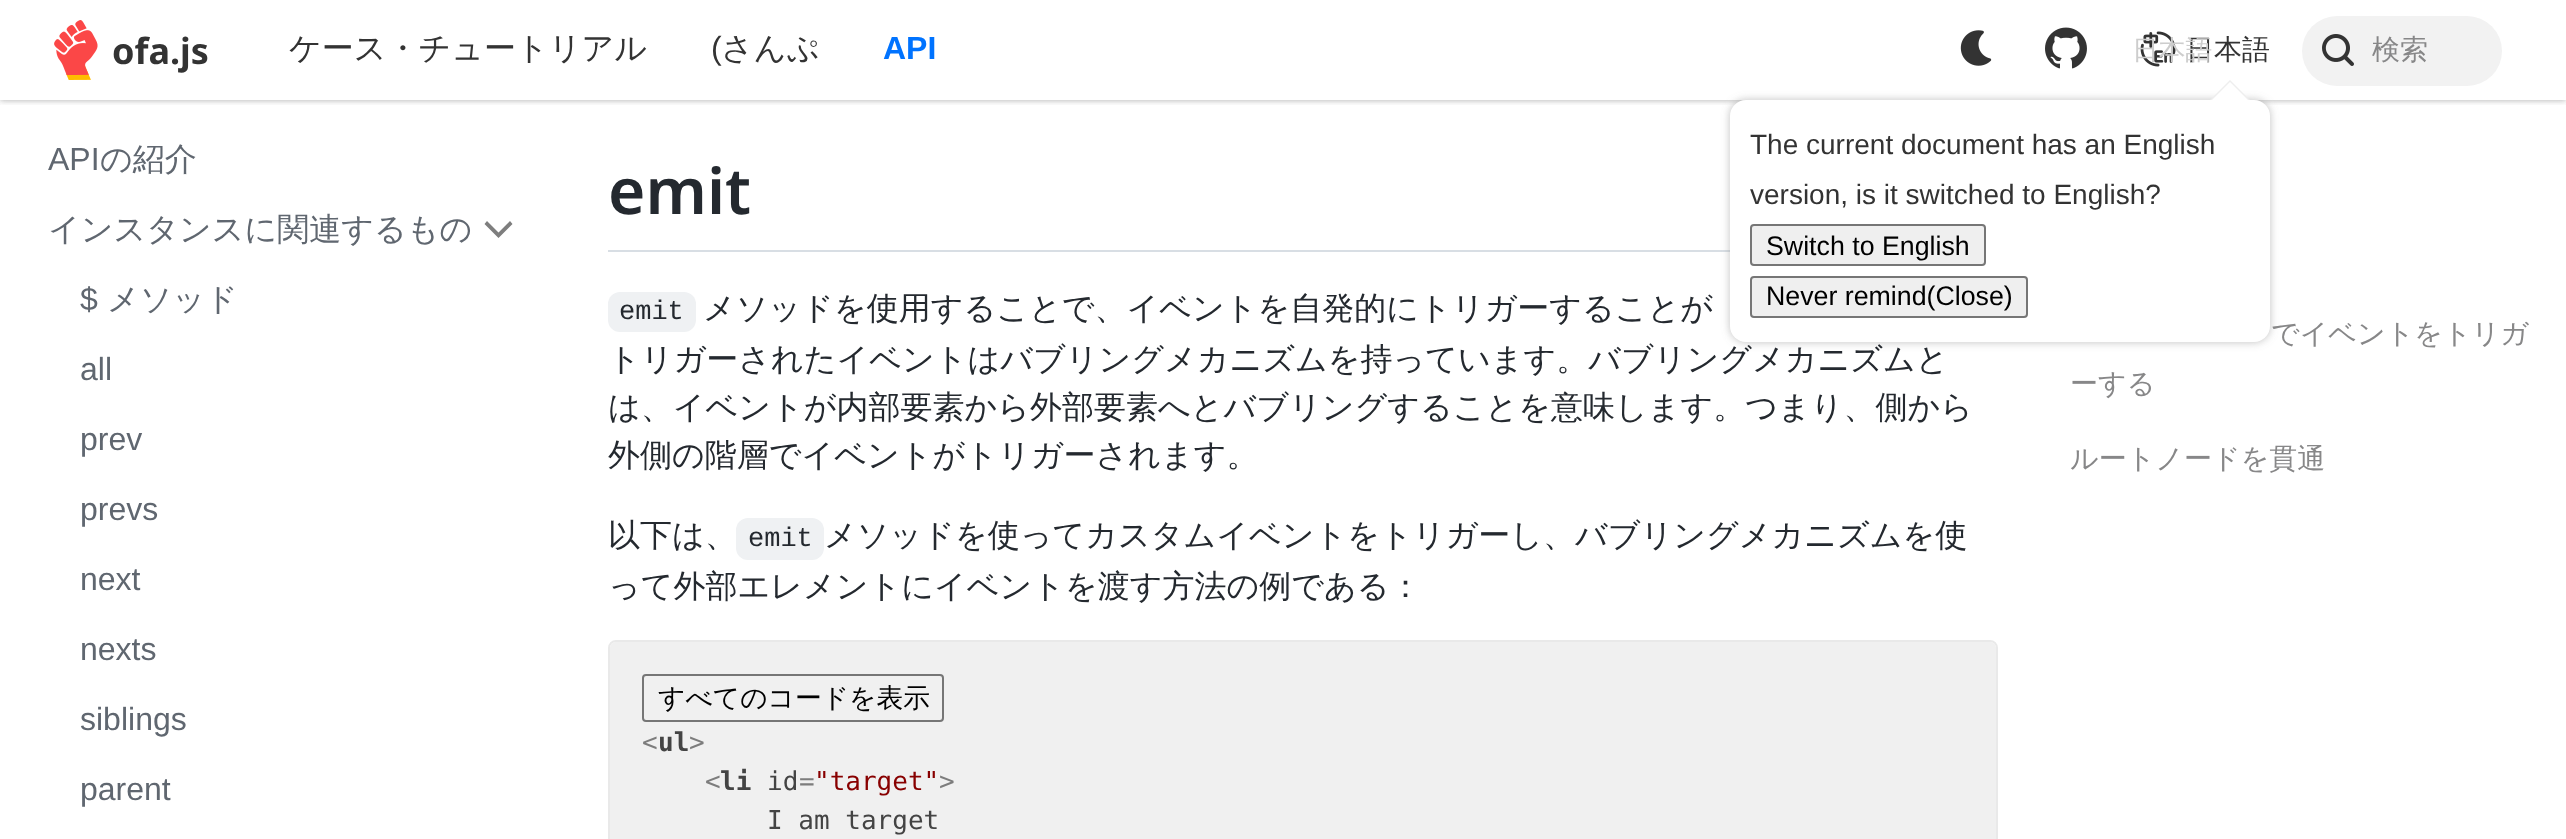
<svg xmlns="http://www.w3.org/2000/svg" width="2566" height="839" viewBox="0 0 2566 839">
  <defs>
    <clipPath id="clip1"><rect x="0" y="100" width="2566" height="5"/></clipPath>
    <filter id="blur1" x="-50%" y="-200%" width="200%" height="500%"><feGaussianBlur stdDeviation="3"/></filter>
    <filter id="blur2" x="-50%" y="-200%" width="200%" height="500%"><feGaussianBlur stdDeviation="4"/></filter>
  </defs>
  <rect width="100%" height="100%" fill="#ffffff"/>
  <g clip-path="url(#clip1)">
    <rect x="0" y="0" width="2566" height="100" fill="#545454" fill-opacity="0.5" filter="url(#blur1)"/>
  </g>
  <image x="54" y="20" width="44" height="60" href="img1.png"/>
  <text x="112" y="64" font-family="Noto Sans" font-size="36" font-weight="bold" fill="#333333">ofa.js</text>
  <text x="289" y="59" font-family="WenQuanYi Zen Hei" font-size="32" font-weight="500" fill="#333333">ケース・チュートリアル</text>
  <text x="711" y="59" font-family="Liberation Sans" font-size="32" fill="#333333">(</text>
  <text x="721" y="59" font-family="WenQuanYi Zen Hei" font-size="32" font-weight="500" fill="#333333">さんぷ</text>
  <text x="883" y="59" font-family="Liberation Sans" font-size="32" font-weight="bold" fill="#0073ff">API</text>
  <image x="1960" y="30" width="32" height="36" href="img2.png"/>
  <image x="2045" y="27" width="42" height="42" href="img3.png"/>
  <image x="2140" y="31" width="36" height="36" href="img4.png"/>
  <text x="2186" y="59" font-family="WenQuanYi Zen Hei" font-size="28" font-weight="500" fill="#333333">日本語</text>
  <text x="2132" y="59" font-family="WenQuanYi Zen Hei" font-size="26.75" font-weight="500" fill="#cdcdcd">日本語</text>
  <rect x="608" y="250" width="1122" height="2" fill="#d8dee4"/>
  <rect x="1730" y="100" width="540" height="242" rx="16" fill="#828282" fill-opacity="0.5" filter="url(#blur2)"/>
  <rect x="1730" y="100" width="540" height="242" rx="16" fill="#ffffff"/>
  <path d="M2250 100H2210L2230 80Z" fill="#eeeeee"/>
  <path d="M2250 102H2210L2230 82Z" fill="#ffffff"/>
  <text x="1750" y="154" font-family="Liberation Sans" font-size="28" fill="#333333">The current document has an English</text>
  <text x="1750" y="204" font-family="Liberation Sans" font-size="28" fill="#333333">version, is it switched to English?</text>
  <rect x="1751" y="225" width="234" height="40" rx="3" fill="#efefef" stroke="#767676" stroke-width="2"/>
  <text x="1766" y="255" font-family="Liberation Sans" font-size="26.75" fill="#000000">Switch to English</text>
  <rect x="1751" y="277" width="276" height="40" rx="3" fill="#efefef" stroke="#767676" stroke-width="2"/>
  <text x="1766" y="305" font-family="Liberation Sans" font-size="26.75" fill="#000000">Never remind(Close)</text>
  <rect x="2302" y="16" width="200" height="70" rx="35" fill="#f2f2f2"/>
  <image x="2322" y="34" width="32" height="32" href="img5.png"/>
  <text x="2372" y="59" font-family="WenQuanYi Zen Hei" font-size="28" font-weight="500" fill="#878788">検索</text>
  <text x="48" y="170" font-family="Liberation Sans" font-size="32" fill="#606770">API</text>
  <text x="100" y="170" font-family="WenQuanYi Zen Hei" font-size="32" font-weight="500" fill="#606770">の紹介</text>
  <text x="48" y="240" font-family="WenQuanYi Zen Hei" font-size="32" font-weight="500" fill="#606770">インスタンスに関連するもの</text>
  <path d="M498.5 232.5L510 221L512.5 224L498.5 238L484.5 224L487 221Z" fill="#7e7e7e"/>
  <text x="80" y="310" font-family="Liberation Sans" font-size="32" fill="#606770">$</text>
  <text x="107" y="310" font-family="WenQuanYi Zen Hei" font-size="32" font-weight="500" fill="#606770">メソッド</text>
  <text x="80" y="380" font-family="Liberation Sans" font-size="32" fill="#606770">all</text>
  <text x="80" y="450" font-family="Liberation Sans" font-size="32" fill="#606770">prev</text>
  <text x="80" y="520" font-family="Liberation Sans" font-size="32" fill="#606770">prevs</text>
  <text x="80" y="590" font-family="Liberation Sans" font-size="32" fill="#606770">next</text>
  <text x="80" y="660" font-family="Liberation Sans" font-size="32" fill="#606770">nexts</text>
  <text x="80" y="730" font-family="Liberation Sans" font-size="32" fill="#606770">siblings</text>
  <text x="80" y="800" font-family="Liberation Sans" font-size="32" fill="#606770">parent</text>
  <text x="608" y="214" font-family="Noto Sans" font-size="64" font-weight="600" fill="#24292f">emit</text>
  <rect x="608" y="292" width="88" height="40" rx="12" fill="#eff1f3"/>
  <text x="619" y="319" font-family="Liberation Mono" font-size="27" fill="#24292f">emit</text>
  <text x="703" y="319" font-family="WenQuanYi Zen Hei" font-size="32" font-weight="500" fill="#24292f">メソッドを使用することで、イベントを自発的にトリガーすることが</text>
  <text x="608" y="370" font-family="WenQuanYi Zen Hei" font-size="32" font-weight="500" fill="#24292f">トリガーされたイベントはバブリングメカニズムを持っています。バブリングメカニズムと</text>
  <text x="608" y="418" font-family="WenQuanYi Zen Hei" font-size="32" font-weight="500" fill="#24292f">は、イベントが内部要素から外部要素へとバブリングすることを意味します。つまり、側から</text>
  <text x="608" y="466" font-family="WenQuanYi Zen Hei" font-size="32" font-weight="500" fill="#24292f">外側の階層でイベントがトリガーされます。</text>
  <text x="608" y="546" font-family="WenQuanYi Zen Hei" font-size="32" font-weight="500" fill="#24292f">以下は、</text>
  <rect x="736" y="518" width="88" height="42" rx="12" fill="#eff1f3"/>
  <text x="748" y="546" font-family="Liberation Mono" font-size="27" fill="#24292f">emit</text>
  <text x="824" y="546" font-family="WenQuanYi Zen Hei" font-size="32" font-weight="500" fill="#24292f">メソッドを使ってカスタムイベントをトリガーし、バブリングメカニズムを使</text>
  <text x="608" y="597" font-family="WenQuanYi Zen Hei" font-size="32" font-weight="500" fill="#24292f">って外部エレメントにイベントを渡す方法の例である：</text>
  <rect x="609" y="641" width="1388" height="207" rx="7" fill="none" stroke="#e9e9e9" stroke-width="2"/>
  <path d="M616 642H1990C1993.5 642 1996 644.5 1996 648V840H610V648C610 644.5 612.5 642 616 642Z" fill="#f0f0f0"/>
  <rect x="643" y="675" width="300" height="46" rx="3" fill="none" stroke="#767676" stroke-width="2"/>
  <text x="658" y="707" font-family="WenQuanYi Zen Hei" font-size="26.75" font-weight="500" fill="#000000">すべてのコードを表示</text>
  <text x="642" y="751" font-family="DejaVu Sans Mono" font-size="26" fill="#7d7d7d">&lt;</text>
  <text x="658" y="751" font-family="DejaVu Sans Mono" font-size="26" font-weight="bold" fill="#444444">ul</text>
  <text x="689" y="751" font-family="DejaVu Sans Mono" font-size="26" fill="#7d7d7d">&gt;</text>
  <text x="705" y="790" font-family="DejaVu Sans Mono" font-size="26" fill="#7d7d7d">&lt;</text>
  <text x="720" y="790" font-family="DejaVu Sans Mono" font-size="26" font-weight="bold" fill="#444444">li</text>
  <text x="767" y="790" font-family="DejaVu Sans Mono" font-size="26" fill="#444444">id</text>
  <text x="799" y="790" font-family="DejaVu Sans Mono" font-size="26" fill="#7d7d7d">=</text>
  <text x="814" y="790" font-family="DejaVu Sans Mono" font-size="26" fill="#880000">"target"</text>
  <text x="939" y="790" font-family="DejaVu Sans Mono" font-size="26" fill="#7d7d7d">&gt;</text>
  <text x="767" y="829" font-family="DejaVu Sans Mono" font-size="26" fill="#444444">I am target</text>
  <text x="2271" y="343" font-family="WenQuanYi Zen Hei" font-size="28" font-weight="500" fill="#878788">でイベントをトリガ</text>
  <text x="2070" y="393" font-family="WenQuanYi Zen Hei" font-size="28" font-weight="500" fill="#878788">ーする</text>
  <text x="2070" y="468" font-family="WenQuanYi Zen Hei" font-size="28" font-weight="500" fill="#878788">ルートノードを貫通</text>
</svg>
